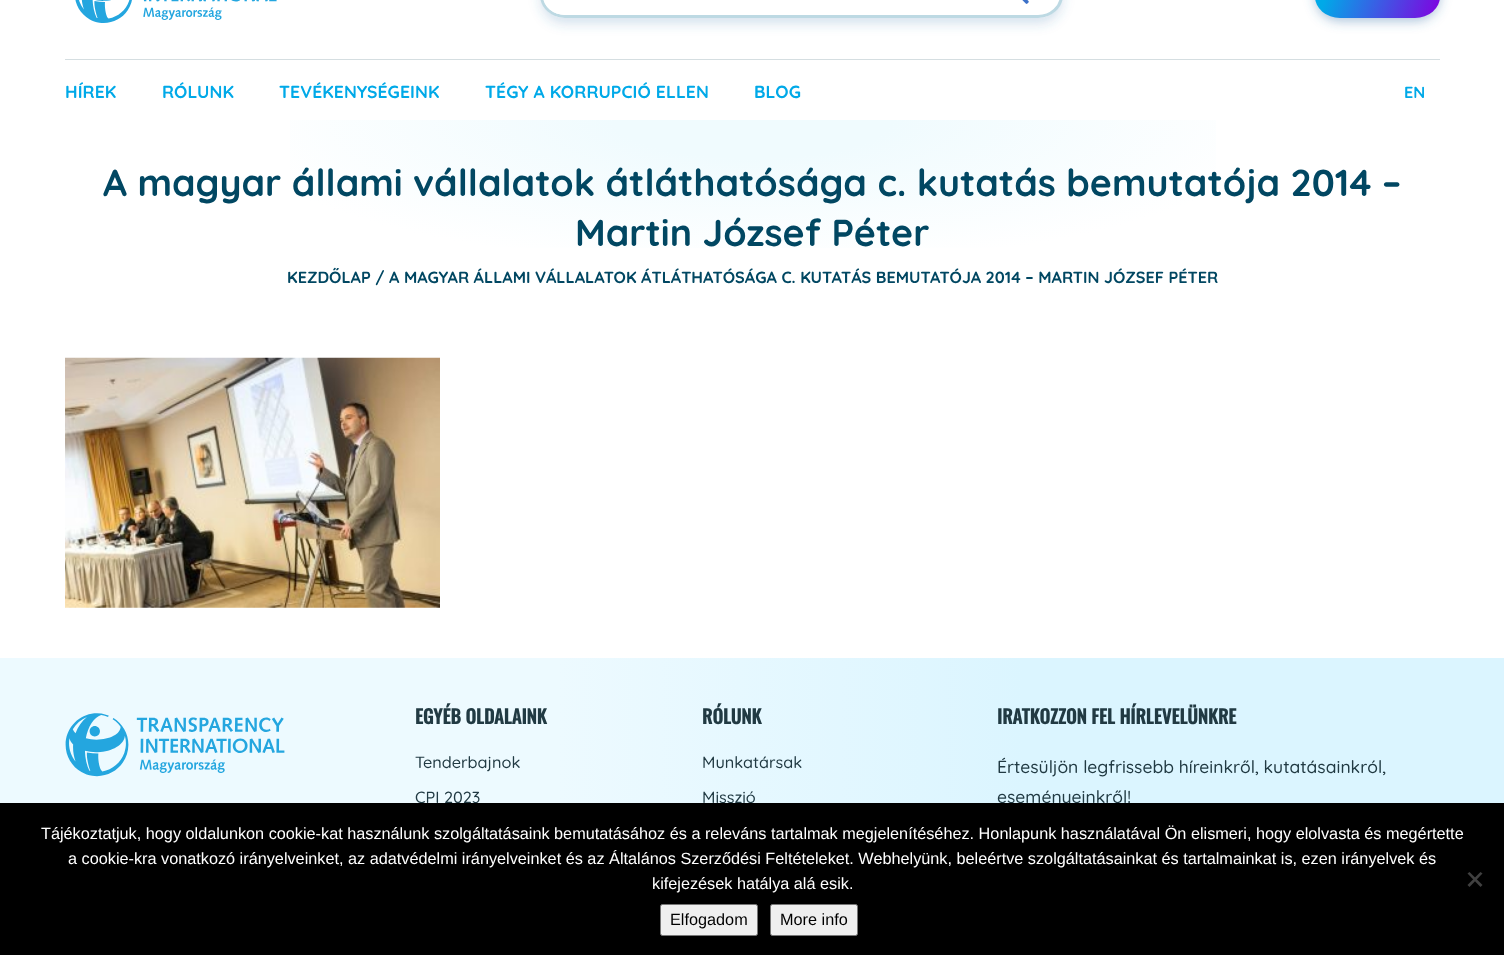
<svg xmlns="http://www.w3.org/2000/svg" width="1504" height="955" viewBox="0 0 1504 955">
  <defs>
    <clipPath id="clip1"><path d="M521 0H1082V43H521ZM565-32H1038C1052-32 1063-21 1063-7C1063 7 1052 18 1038 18H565C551 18 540 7 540-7C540-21 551-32 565-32Z" clip-rule="evenodd"/></clipPath>
    <filter id="blur1" x="-50%" y="-200%" width="200%" height="500%"><feGaussianBlur stdDeviation="6"/></filter>
    <linearGradient id="g1" gradientUnits="userSpaceOnUse" x1="1314" y1="-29" x2="1441" y2="14"><stop offset="0.14" stop-color="#00a9e8"/><stop offset="1" stop-color="#8200e0"/></linearGradient>
    <radialGradient id="g2" gradientUnits="userSpaceOnUse" cx="0" cy="0" r="1" gradientTransform="matrix(1064 0 0 293 753 120)"><stop offset="0.13" stop-color="#f0fbfe"/><stop offset="0.5" stop-color="#ffffff"/></radialGradient>
    <linearGradient id="g3" gradientUnits="userSpaceOnUse" x1="0" y1="893" x2="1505" y2="893"><stop offset="0.37" stop-color="#edfaff"/><stop offset="0.68" stop-color="#dbf5ff"/></linearGradient>
  </defs>
  <rect width="100%" height="100%" fill="#ffffff"/>
  <image x="75" y="0" width="202" height="23" href="img1.png"/>
  <g clip-path="url(#clip1)">
    <rect x="540" y="-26" width="523" height="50" rx="25" fill="#3974aa" fill-opacity="0.2" filter="url(#blur1)"/>
  </g>
  <rect x="541.5" y="-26.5" width="520" height="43" rx="23.5" fill="none" stroke="#bdd9e3" stroke-width="3"/>
  <rect x="543" y="-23" width="465" height="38" rx="22.5" fill="#ffffff"/>
  <image x="1022" y="0" width="7" height="4" href="img2.png"/>
  <rect x="1315" y="-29" width="125" height="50" rx="25" fill="#3974ab" fill-opacity="0.44" filter="url(#blur1)"/>
  <rect x="1315" y="-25" width="125" height="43" rx="25" fill="url(#g1)"/>
  <rect x="65" y="59" width="1375" height="1" fill="#d5dee1"/>
  <text x="65" y="98" font-family="Quicksand" font-size="17.5" font-weight="bold" letter-spacing="0.1" fill="#00a9e8">HÍREK</text>
  <text x="162" y="98" font-family="Quicksand" font-size="17.5" font-weight="bold" letter-spacing="0.1" fill="#00a9e8">RÓLUNK</text>
  <text x="279" y="98" font-family="Quicksand" font-size="17.5" font-weight="bold" letter-spacing="0.1" fill="#00a9e8">TEVÉKENYSÉGEINK</text>
  <text x="485" y="98" font-family="Quicksand" font-size="17.5" font-weight="bold" letter-spacing="0.1" fill="#00a9e8">TÉGY A KORRUPCIÓ ELLEN</text>
  <text x="754" y="98" font-family="Quicksand" font-size="17.5" font-weight="bold" letter-spacing="0.1" fill="#00a9e8">BLOG</text>
  <text x="1404" y="98" font-family="Quicksand" font-size="16.25" font-weight="bold" fill="#00a9e8">EN</text>
  <rect x="290" y="120" width="926" height="128" fill="url(#g2)"/>
  <text x="103" y="196" font-family="Quicksand" font-size="37.5" font-weight="bold" fill="#014762">A magyar állami vállalatok átláthatósága c. kutatás bemutatója 2014 –</text>
  <text x="575" y="246" font-family="Quicksand" font-size="37.5" font-weight="bold" fill="#014762">Martin József Péter</text>
  <text x="287" y="283" font-family="Quicksand" font-size="16.25" font-weight="bold" fill="#014762">KEZDŐLAP / A MAGYAR ÁLLAMI VÁLLALATOK ÁTLÁTHATÓSÁGA C. KUTATÁS BEMUTATÓJA 2014 – MARTIN JÓZSEF PÉTER</text>
  <image x="65" y="357" width="375" height="251" href="img3.png"/>
  <rect x="0" y="658" width="1504" height="145" fill="url(#g3)"/>
  <image x="65" y="713" width="220" height="64" href="img4.png"/>
  <text x="415" y="724" font-family="Oswald" font-size="18.75" font-weight="bold" fill="#213a43">EGYÉB OLDALAINK</text>
  <text x="415" y="768" font-family="Quicksand" font-size="16.25" font-weight="500" fill="#213a43">Tenderbajnok</text>
  <text x="415" y="803" font-family="Quicksand" font-size="16.25" font-weight="500" fill="#213a43">CPI 2023</text>
  <text x="702" y="724" font-family="Oswald" font-size="18.75" font-weight="bold" fill="#213a43">RÓLUNK</text>
  <text x="702" y="768" font-family="Quicksand" font-size="16.25" font-weight="500" fill="#213a43">Munkatársak</text>
  <text x="702" y="803" font-family="Quicksand" font-size="16.25" font-weight="500" fill="#213a43">Misszió</text>
  <text x="997" y="724" font-family="Oswald" font-size="18.75" font-weight="bold" fill="#213a43">IRATKOZZON FEL HÍRLEVELÜNKRE</text>
  <text x="997" y="773" font-family="'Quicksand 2'" font-size="17.5" font-weight="500" fill="#213a43">Értesüljön legfrissebb híreinkről, kutatásainkról,</text>
  <text x="997" y="803" font-family="'Quicksand 2'" font-size="17.5" font-weight="500" fill="#213a43">eseményeinkről!</text>
  <rect x="0" y="803" width="1504" height="152" fill="#000000"/>
  <text x="41" y="839" font-family="Liberation Sans" font-size="16.25" fill="#ffffff">Tájékoztatjuk, hogy oldalunkon cookie-kat használunk szolgáltatásaink bemutatásához és a releváns tartalmak megjelenítéséhez. Honlapunk használatával Ön elismeri, hogy elolvasta és megértette</text>
  <text x="68" y="864" font-family="Liberation Sans" font-size="16.25" fill="#ffffff">a cookie-kra vonatkozó irányelveinket, az adatvédelmi irányelveinket és az Általános Szerződési Feltételeket. Webhelyünk, beleértve szolgáltatásainkat és tartalmainkat is, ezen irányelvek és</text>
  <text x="652" y="889" font-family="Liberation Sans" font-size="16.25" fill="#ffffff">kifejezések hatálya alá esik.</text>
  <path d="M1480.5 872L1482.5 873.5L1469.5 887L1467.5 885Z" fill="#404040"/>
  <path d="M1467.5 873.5L1469.5 872L1482.5 885L1480.5 887Z" fill="#404040"/>
  <rect x="660.5" y="904.5" width="97" height="31" rx="2" fill="#efefef" stroke="#767676"/>
  <text x="670" y="925" font-family="Liberation Sans" font-size="16.25" fill="#000000">Elfogadom</text>
  <rect x="770.5" y="904.5" width="87" height="31" rx="2" fill="#efefef" stroke="#767676"/>
  <text x="780" y="925" font-family="Liberation Sans" font-size="16.25" fill="#000000">More info</text>
</svg>
